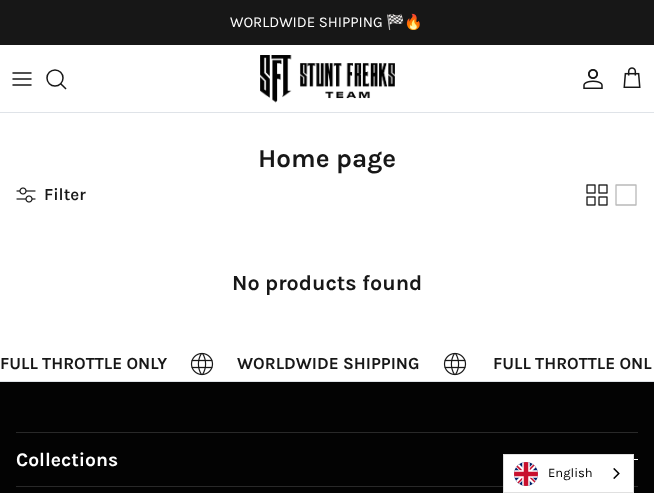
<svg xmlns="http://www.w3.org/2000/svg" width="654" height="493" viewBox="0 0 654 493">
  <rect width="100%" height="100%" fill="#ffffff"/>
  <rect x="0" y="0" width="654" height="45" fill="#171717"/>
  <text x="230" y="27" font-family="Karla" font-size="15" fill="#ffffff">WORLDWIDE SHIPPING</text>
  <text x="386" y="27" font-family="Noto Color Emoji" font-size="15" fill="#ffffff">🏁🔥</text>
  <rect x="0" y="112" width="654" height="1" fill="#dfe3e8"/>
  <path d="M13 79H31M13 73H31M13 85H31" fill="none" stroke="#171717" stroke-width="1.5" stroke-linecap="round" stroke-linejoin="round"/>
  <circle cx="55" cy="78" r="8" fill="none" stroke="#171717" stroke-width="1.5"/>
  <path d="M61 84L65.5 88.5" fill="none" stroke="#171717" stroke-width="1.5" stroke-linecap="square"/>
  <image x="260" y="55" width="135" height="48" href="img1.png"/>
  <image x="583" y="69" width="20" height="20" href="img2.png"/>
  <image x="623" y="67" width="18" height="21" href="img3.png"/>
  <text x="258" y="167" font-family="Karla" font-size="26" font-weight="bold" fill="#171717">Home page</text>
  <image x="16" y="187" width="20" height="16" href="img4.png"/>
  <text x="44" y="200" font-family="Karla" font-size="17" font-weight="600" fill="#171717">Filter</text>
  <image x="586" y="184" width="22" height="22" href="img5.png"/>
  <path d="M616 185H636V205H616V185" fill="none" stroke="#b9b9b9" stroke-width="1.3" stroke-linecap="round" stroke-linejoin="round"/>
  <text x="232" y="290" font-family="Karla" font-size="21.5" font-weight="bold" fill="#171717">No products found</text>
  <text x="0" y="369" font-family="Karla" font-size="17" font-weight="bold" fill="#171717">FULL THROTTLE ONLY</text>
  <image x="190" y="352" width="24" height="24" href="img6.png"/>
  <text x="237" y="369" font-family="Karla" font-size="17" font-weight="bold" fill="#171717">WORLDWIDE SHIPPING</text>
  <image x="443" y="352" width="24" height="24" href="img6.png"/>
  <text x="493" y="369" font-family="Karla" font-size="17" font-weight="bold" fill="#171717">FULL THROTTLE ONL</text>
  <rect x="0" y="382" width="654" height="111" fill="#030303"/>
  <rect x="0" y="381" width="654" height="1" fill="#dfe3e8"/>
  <rect x="16" y="432" width="622" height="1" fill="#292929"/>
  <text x="16" y="466" font-family="Karla" font-size="19.25" font-weight="bold" fill="#ffffff">Collections</text>
  <rect x="627" y="459" width="11" height="1" fill="#ffffff"/>
  <rect x="16" y="486" width="622" height="1" fill="#292929"/>
  <rect x="503.5" y="454.5" width="130" height="38" fill="#ffffff" stroke="#e0e0e0"/>
  <image x="514" y="462" width="24" height="24" href="img7.png"/>
  <text x="548" y="477" font-family="Karla" font-size="13" fill="#000000">English</text>
  <image x="613" y="468" width="7" height="11" href="img8.png"/>
</svg>
